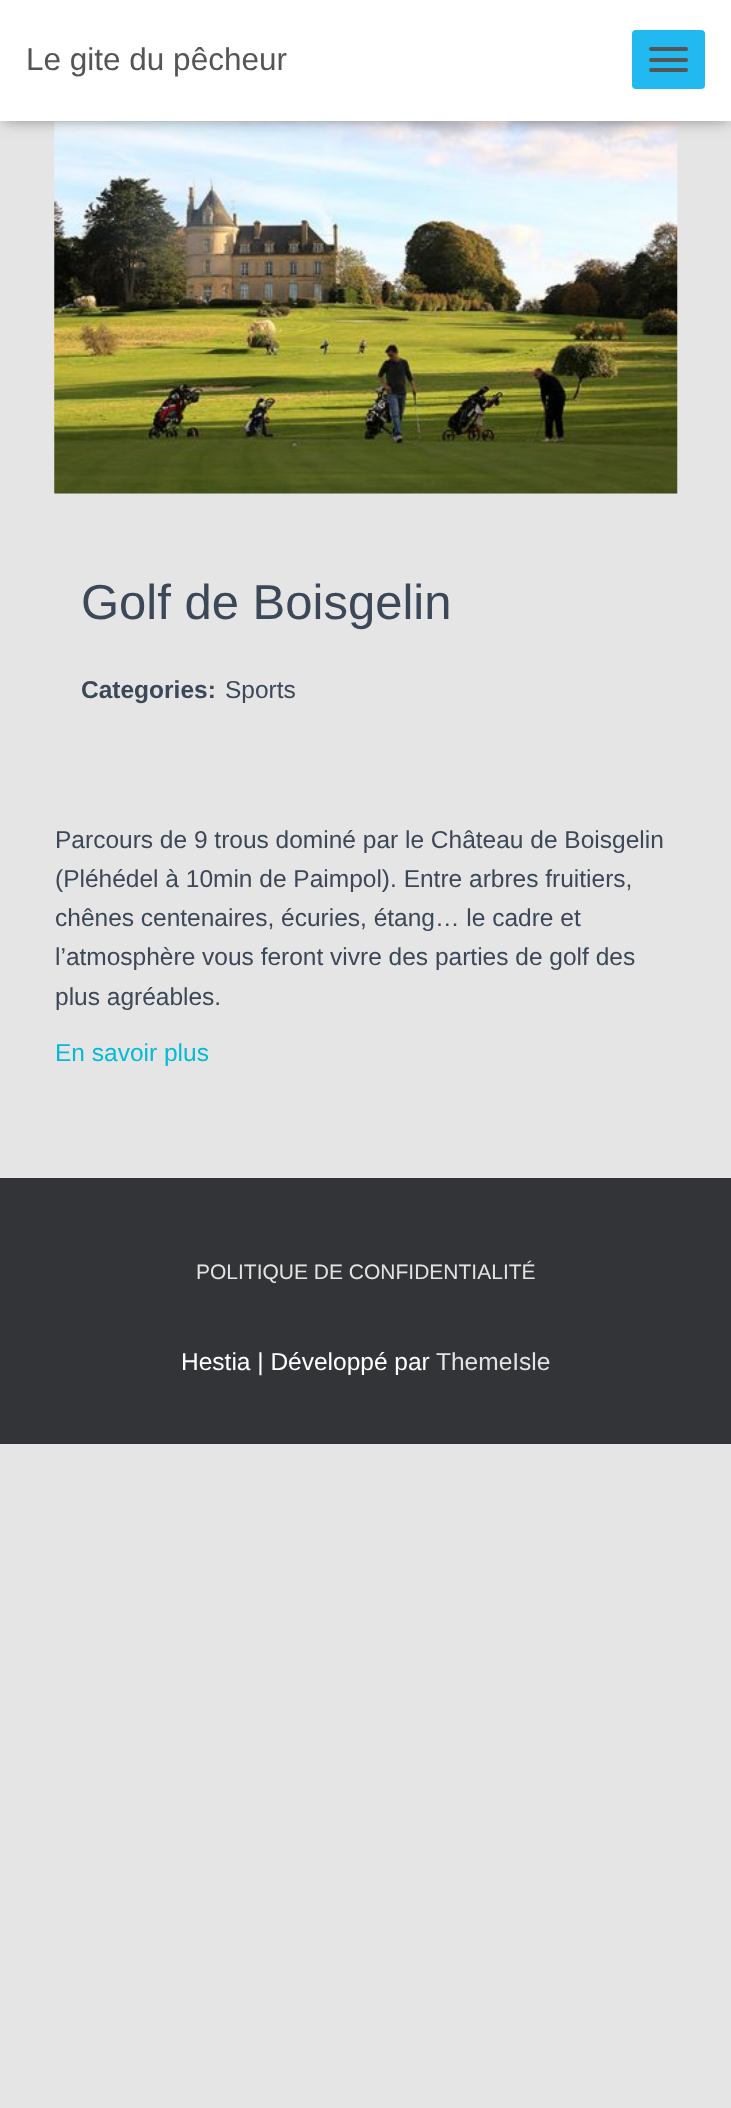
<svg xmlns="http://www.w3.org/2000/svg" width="731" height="2108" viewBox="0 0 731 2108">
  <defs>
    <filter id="blur1" x="-50%" y="-200%" width="200%" height="500%"><feGaussianBlur stdDeviation="4.5"/></filter>
    <filter id="blur2" x="-50%" y="-200%" width="200%" height="500%"><feGaussianBlur stdDeviation="9"/></filter>
  </defs>
  <rect width="100%" height="100%" fill="#e5e5e5"/>
  <image x="54" y="121" width="624" height="373" href="img1.png"/>
  <rect x="4" y="11" width="724" height="113" fill="#000000" fill-opacity="0.1" filter="url(#blur1)"/>
  <rect x="0" y="2" width="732" height="121" fill="#000000" fill-opacity="0.12" filter="url(#blur2)"/>
  <rect x="11" y="12" width="710" height="100" fill="#000000" fill-opacity="0.42" filter="url(#blur2)"/>
  <rect x="0" y="0" width="731" height="121" fill="#ffffff"/>
  <text x="26" y="70" font-family="Liberation Sans" font-size="31.5" fill="#555555">Le gite du pêcheur</text>
  <rect x="632" y="30" width="73" height="59" rx="4" fill="#22b8f0"/>
  <rect x="649" y="47" width="39" height="4" rx="2" fill="#555555"/>
  <rect x="649" y="58" width="39" height="4" rx="2" fill="#555555"/>
  <rect x="649" y="68" width="39" height="4" rx="2" fill="#555555"/>
  <text x="81" y="619" font-family="Liberation Sans" font-size="49" fill="#3c4858">Golf de Boisgelin</text>
  <text x="81" y="698" font-family="Liberation Sans" font-size="24.5" font-weight="bold" fill="#3c4858">Categories:</text>
  <text x="225" y="698" font-family="Liberation Sans" font-size="24.5" fill="#3c4858">Sports</text>
  <text x="55" y="848" font-family="Liberation Sans" font-size="24.5" fill="#3c4858">Parcours de 9 trous dominé par le Château de Boisgelin</text>
  <text x="55" y="887" font-family="Liberation Sans" font-size="24.5" fill="#3c4858">(Pléhédel à 10min de Paimpol). Entre arbres fruitiers,</text>
  <text x="55" y="926" font-family="Liberation Sans" font-size="24.5" fill="#3c4858">chênes centenaires, écuries, étang… le cadre et</text>
  <text x="55" y="965" font-family="Liberation Sans" font-size="24.5" fill="#3c4858">l’atmosphère vous feront vivre des parties de golf des</text>
  <text x="55" y="1005" font-family="Liberation Sans" font-size="24.5" fill="#3c4858">plus agréables.</text>
  <text x="55" y="1061" font-family="Liberation Sans" font-size="24.5" fill="#04bad6">En savoir plus</text>
  <rect x="0" y="1178" width="731" height="266" fill="#323437"/>
  <text x="196" y="1279" font-family="Liberation Sans" font-size="21" fill="#e2e3e3">POLITIQUE DE CONFIDENTIALITÉ</text>
  <text x="181" y="1370" font-family="Liberation Sans" font-size="24.5" fill="#ffffff">Hestia | Développé par</text>
  <text x="436" y="1370" font-family="Liberation Sans" font-size="24.5" fill="#e2e3e3">ThemeIsle</text>
</svg>
